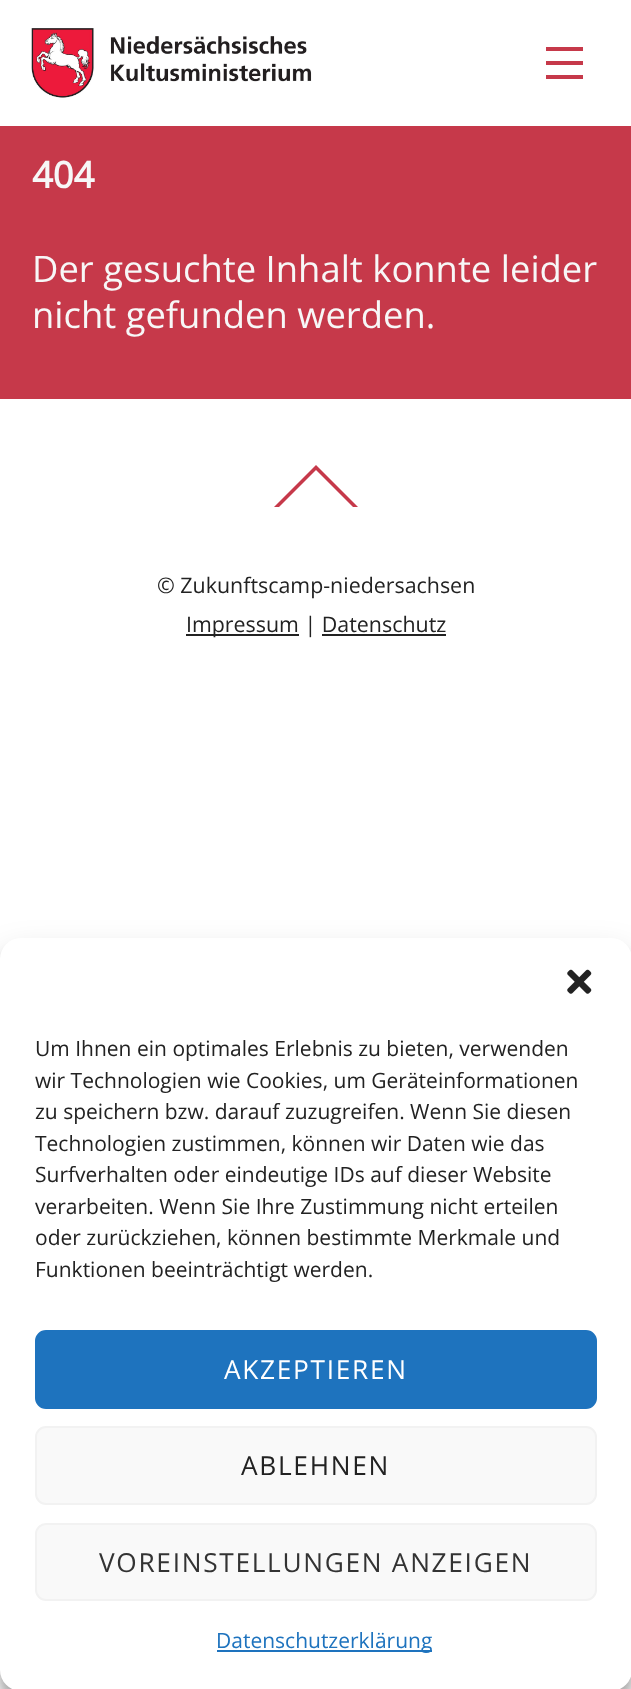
<svg xmlns="http://www.w3.org/2000/svg" width="631" height="1689" viewBox="0 0 631 1689">
  <defs>
    <filter id="blur1" x="-50%" y="-200%" width="200%" height="500%"><feGaussianBlur stdDeviation="5"/></filter>
    <filter id="blur2" x="-50%" y="-200%" width="200%" height="500%"><feGaussianBlur stdDeviation="17.5"/></filter>
  </defs>
  <rect width="100%" height="100%" fill="#ffffff"/>
  <rect x="0" y="126" width="631" height="271" fill="#c6394a"/>
  <image x="31" y="28" width="281" height="70" href="img1.png"/>
  <rect x="546" y="75" width="37" height="4" fill="#c6394a"/>
  <rect x="546" y="47" width="37" height="4" fill="#c6394a"/>
  <rect x="546" y="61" width="37" height="4" fill="#c6394a"/>
  <text x="32" y="188" font-family="Open Sans" font-size="36.4" font-weight="bold" fill="#f7f7f7">404</text>
  <text x="32" y="282" font-family="Open Sans" font-size="36.4" fill="#f7f7f7">Der gesuchte Inhalt konnte leider</text>
  <text x="32" y="328" font-family="Open Sans" font-size="36.4" fill="#f7f7f7">nicht gefunden werden.</text>
  <rect x="0" y="397" width="631" height="2" fill="#c6394a"/>
  <path d="M316 465L358 507H353L316 470Z" fill="#c6394a"/>
  <path d="M274 507L316 465V470L279 507Z" fill="#c6394a"/>
  <text x="157" y="593" font-family="Open Sans" font-size="21.4" fill="#222222">© Zukunftscamp-niedersachsen</text>
  <rect x="186" y="634" width="113" height="2" fill="#222222"/>
  <text x="186" y="632" font-family="Open Sans" font-size="21.4" fill="#222222">Impressum | Datenschutz</text>
  <rect x="322" y="634" width="124" height="2" fill="#222222"/>
  <rect x="0" y="949" width="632" height="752" rx="21" fill="#000000" fill-opacity="0.23" filter="url(#blur1)"/>
  <rect x="0" y="956" width="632" height="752" rx="21" fill="#000000" fill-opacity="0.19" filter="url(#blur2)"/>
  <rect x="0" y="938" width="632" height="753" rx="21" fill="#ffffff"/>
  <image x="567" y="969" width="25" height="25" href="img2.png"/>
  <text x="35" y="1056" font-family="Open Sans" font-size="21" fill="#222222">Um Ihnen ein optimales Erlebnis zu bieten, verwenden</text>
  <text x="35" y="1088" font-family="Open Sans" font-size="21" fill="#222222">wir Technologien wie Cookies, um Geräteinformationen</text>
  <text x="35" y="1119" font-family="Open Sans" font-size="21" fill="#222222">zu speichern bzw. darauf zuzugreifen. Wenn Sie diesen</text>
  <text x="35" y="1151" font-family="Open Sans" font-size="21" fill="#222222">Technologien zustimmen, können wir Daten wie das</text>
  <text x="35" y="1182" font-family="Open Sans" font-size="21" fill="#222222">Surfverhalten oder eindeutige IDs auf dieser Website</text>
  <text x="35" y="1214" font-family="Open Sans" font-size="21" fill="#222222">verarbeiten. Wenn Sie Ihre Zustimmung nicht erteilen</text>
  <text x="35" y="1245" font-family="Open Sans" font-size="21" fill="#222222">oder zurückziehen, können bestimmte Merkmale und</text>
  <text x="35" y="1277" font-family="Open Sans" font-size="21" fill="#222222">Funktionen beeinträchtigt werden.</text>
  <rect x="36" y="1331" width="560" height="77" rx="10" fill="#1e73be" stroke="#1e73be" stroke-width="2"/>
  <text x="224" y="1379" font-family="Open Sans" font-size="26.25" letter-spacing="1.7" fill="#ffffff">AKZEPTIEREN</text>
  <rect x="36" y="1427" width="560" height="77" rx="10" fill="#f9f9f9" stroke="#f2f2f2" stroke-width="2"/>
  <text x="241" y="1475" font-family="Open Sans" font-size="26.25" letter-spacing="1.7" fill="#222222">ABLEHNEN</text>
  <rect x="36" y="1524" width="560" height="76" rx="10" fill="#f9f9f9" stroke="#f2f2f2" stroke-width="2"/>
  <text x="99" y="1572" font-family="Open Sans" font-size="26.25" letter-spacing="1.7" fill="#333333">VOREINSTELLUNGEN ANZEIGEN</text>
  <rect x="217" y="1650" width="215" height="2" fill="#1e73be"/>
  <text x="216" y="1648" font-family="Open Sans" font-size="21" fill="#1e73be">Datenschutzerklärung</text>
</svg>
